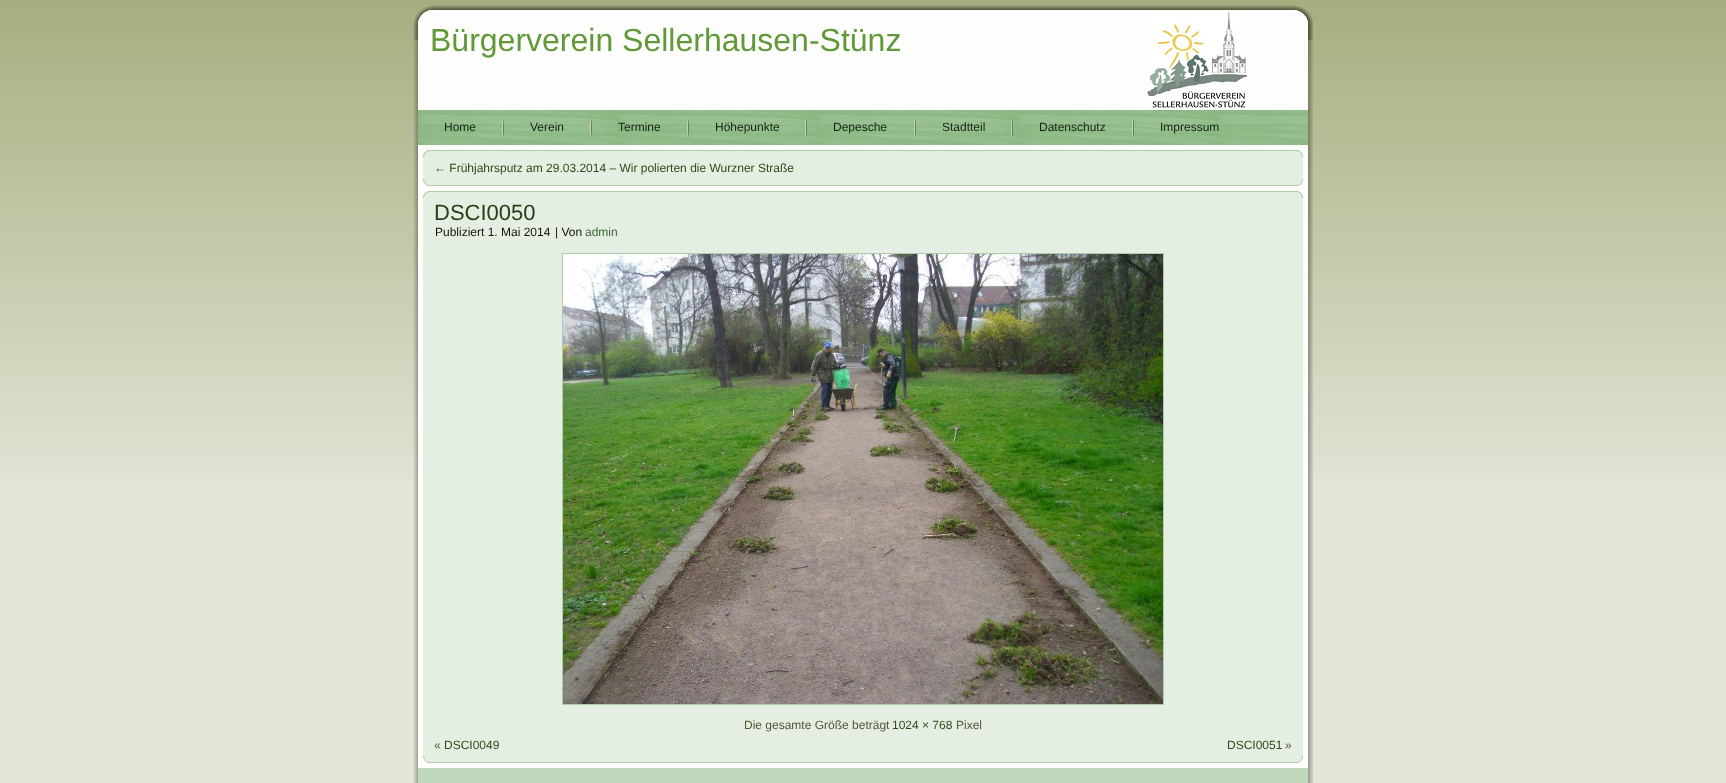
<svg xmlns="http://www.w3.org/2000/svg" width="1726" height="783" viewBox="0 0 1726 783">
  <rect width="100%" height="100%" fill="#e3e5d7"/>
  <image x="0" y="0" width="1726" height="479" href="img1.png"/>
  <image x="413" y="5" width="865" height="35" href="img2.png"/>
  <image x="413" y="5" width="865" height="35" href="img3.png"/>
  <image x="1278" y="5" width="35" height="35" href="img4.png"/>
  <image x="1278" y="5" width="35" height="35" href="img5.png"/>
  <image x="418" y="10" width="890" height="15" href="img6.png"/>
  <image x="418" y="10" width="13" height="13" href="img7.png"/>
  <image x="413" y="40" width="865" height="743" href="img9.png"/>
  <text x="430" y="51" font-family="Liberation Sans" font-size="32" fill="#619938">Bürgerverein Sellerhausen-Stünz</text>
  <image x="1147" y="12" width="100" height="96" href="img8.png"/>
  <image x="1278" y="40" width="35" height="743" href="img10.png"/>
  <image x="418" y="110" width="875" height="35" href="img11.png"/>
  <image x="1293" y="110" width="15" height="35" href="img12.png"/>
  <text x="444" y="131" font-family="Liberation Sans" font-size="12" fill="#162414">Home</text>
  <image x="502" y="118" width="2" height="20" href="img13.png"/>
  <text x="530" y="131" font-family="Liberation Sans" font-size="12" fill="#162414">Verein</text>
  <image x="590" y="118" width="2" height="20" href="img14.png"/>
  <text x="618" y="131" font-family="Liberation Sans" font-size="12" fill="#162414">Termine</text>
  <image x="687" y="118" width="2" height="20" href="img15.png"/>
  <text x="715" y="131" font-family="Liberation Sans" font-size="12" fill="#162414">Höhepunkte</text>
  <image x="805" y="118" width="2" height="20" href="img16.png"/>
  <text x="833" y="131" font-family="Liberation Sans" font-size="12" fill="#162414">Depesche</text>
  <image x="914" y="118" width="2" height="20" href="img17.png"/>
  <text x="942" y="131" font-family="Liberation Sans" font-size="12" fill="#162414">Stadtteil</text>
  <image x="1011" y="118" width="2" height="20" href="img18.png"/>
  <text x="1039" y="131" font-family="Liberation Sans" font-size="12" fill="#162414">Datenschutz</text>
  <image x="1132" y="118" width="2" height="20" href="img19.png"/>
  <text x="1160" y="131" font-family="Liberation Sans" font-size="12" fill="#162414">Impressum</text>
  <image x="423" y="150" width="873" height="36" href="img20.png"/>
  <image x="423" y="150" width="7" height="6" href="img21.png"/>
  <rect x="423" y="157" width="880" height="22" fill="#e4eee2"/>
  <image x="1296" y="150" width="7" height="36" href="img22.png"/>
  <image x="1296" y="150" width="7" height="6" href="img23.png"/>
  <text x="434" y="172" font-family="Liberation Sans" font-size="12" fill="#2f4a1c">← Frühjahrsputz am 29.03.2014 – Wir polierten die Wurzner Straße</text>
  <image x="423" y="191" width="873" height="572" href="img24.png"/>
  <image x="423" y="191" width="7" height="6" href="img21.png"/>
  <rect x="423" y="198" width="880" height="558" fill="#e4eee2"/>
  <image x="1296" y="191" width="7" height="572" href="img25.png"/>
  <image x="1296" y="191" width="7" height="6" href="img23.png"/>
  <text x="434" y="220" font-family="Liberation Sans" font-size="22" fill="#283f17">DSCI0050</text>
  <text x="435" y="236" font-family="Liberation Sans" font-size="12" fill="#15160e">Publiziert 1. Mai 2014</text>
  <text x="555" y="236" font-family="Liberation Sans" font-size="12" fill="#15160e">| Von</text>
  <text x="585" y="236" font-family="Liberation Sans" font-size="12" fill="#3f643a">admin</text>
  <rect x="562.5" y="253.5" width="601" height="451" fill="none" stroke="#adcda8"/>
  <image x="563" y="254" width="600" height="450" href="img26.png"/>
  <text x="744" y="729" font-family="Liberation Sans" font-size="12" fill="#535738">Die gesamte Größe beträgt</text>
  <text x="892" y="729" font-family="Liberation Sans" font-size="12" fill="#2f4a1c">1024 × 768</text>
  <text x="956" y="729" font-family="Liberation Sans" font-size="12" fill="#535738">Pixel</text>
  <text x="434" y="749" font-family="Liberation Sans" font-size="12" fill="#535738">«</text>
  <text x="444" y="749" font-family="Liberation Sans" font-size="12" fill="#2f4a1c">DSCI0049</text>
  <text x="1227" y="749" font-family="Liberation Sans" font-size="12" fill="#2f4a1c">DSCI0051</text>
  <text x="1285" y="749" font-family="Liberation Sans" font-size="12" fill="#535738">»</text>
  <rect x="418" y="768" width="890" height="15" fill="#bfd8bb"/>
</svg>
